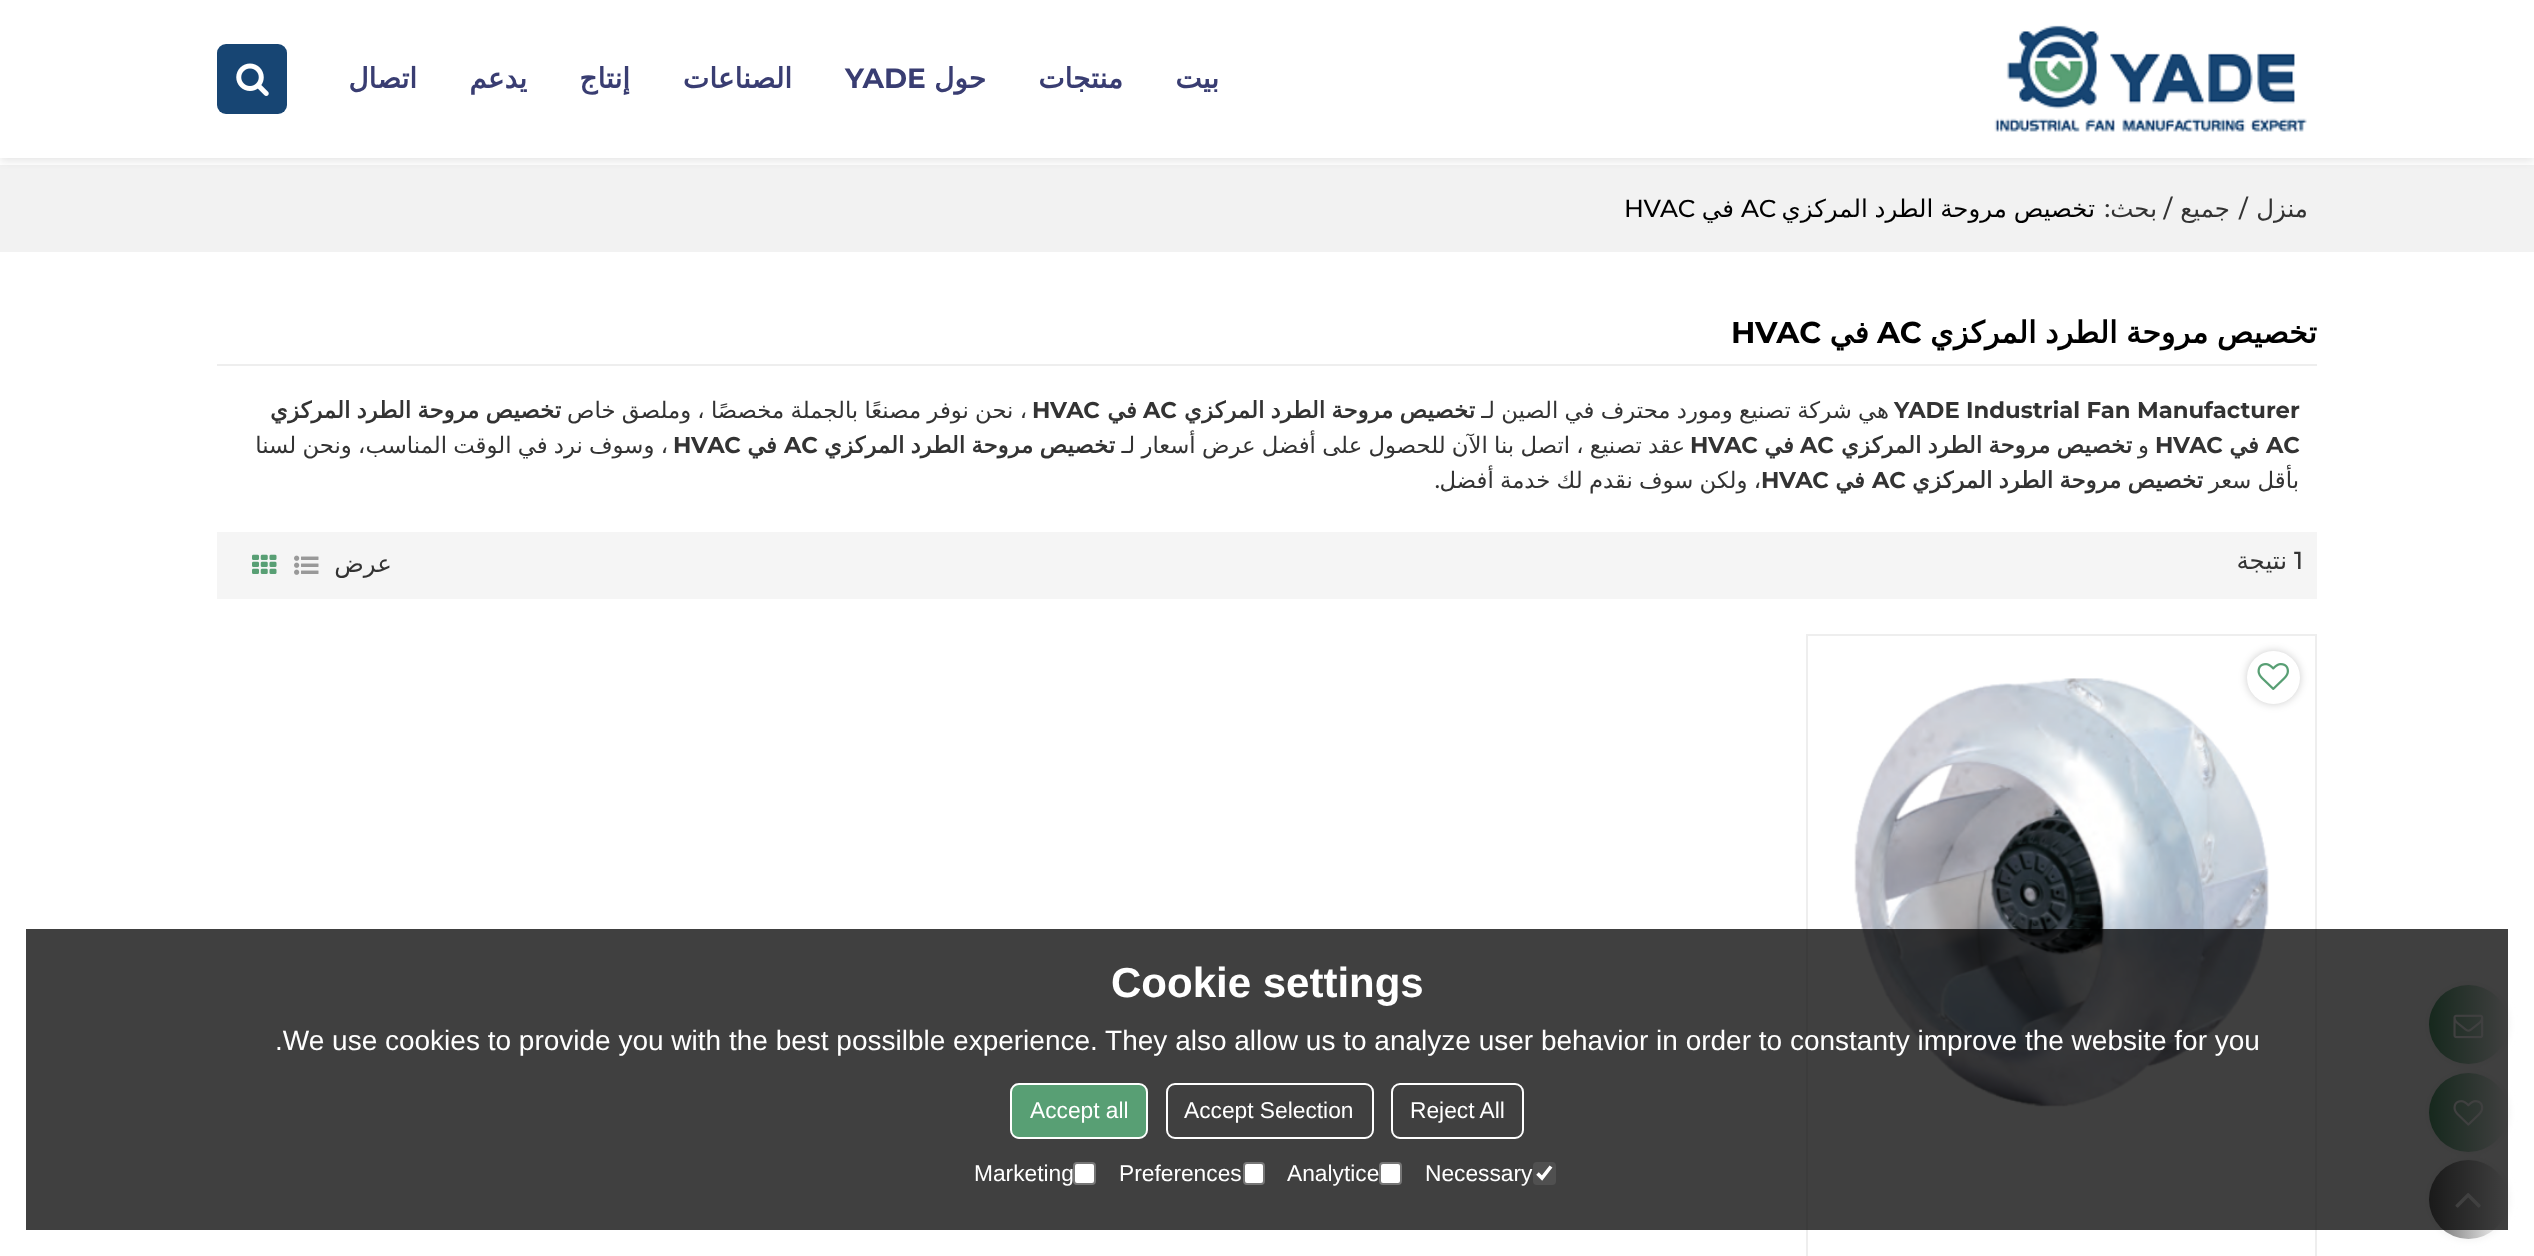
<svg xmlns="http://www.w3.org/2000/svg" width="2534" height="1256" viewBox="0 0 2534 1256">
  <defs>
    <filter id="blur1" x="-50%" y="-200%" width="200%" height="500%"><feGaussianBlur stdDeviation="4.5"/></filter>
    <clipPath id="clip1"><rect x="217" y="308" width="2100" height="47"/></clipPath>
    <linearGradient id="g1" gradientUnits="userSpaceOnUse" x1="2429" y1="1025" x2="2508" y2="1025"><stop offset="0" stop-color="#589f74"/><stop offset="1" stop-color="#ffffff"/></linearGradient>
    <linearGradient id="g2" gradientUnits="userSpaceOnUse" x1="2429" y1="1112" x2="2508" y2="1112"><stop offset="0" stop-color="#589f74"/><stop offset="1" stop-color="#ffffff"/></linearGradient>
    <linearGradient id="g3" gradientUnits="userSpaceOnUse" x1="2429" y1="1200" x2="2508" y2="1200"><stop offset="0" stop-color="#666666"/><stop offset="1" stop-color="#ffffff"/></linearGradient>
  </defs>
  <rect width="100%" height="100%" fill="#ffffff"/>
  <rect x="0" y="165" width="2534" height="87" fill="#f2f2f2"/>
  <rect x="0" y="4" width="2534" height="157" fill="#000000" fill-opacity="0.1" filter="url(#blur1)"/>
  <rect x="0" y="0" width="2534" height="158" fill="#ffffff"/>
  <image x="1994" y="25" width="313" height="107" href="img1.png"/>
  <text x="1219" y="88" font-family="DejaVu Sans" font-size="28" font-weight="bold" direction="rtl" fill="#393d72">بيت</text>
  <text x="1123" y="88" font-family="DejaVu Sans" font-size="28" font-weight="bold" direction="rtl" fill="#393d72">منتجات</text>
  <text x="986" y="88" font-family="DejaVu Sans" font-size="28" font-weight="bold" direction="rtl" fill="#393d72">حول</text>
  <text x="845" y="88" font-family="Montserrat" font-size="28" font-weight="bold" fill="#393d72">YADE</text>
  <text x="792" y="88" font-family="DejaVu Sans" font-size="28" font-weight="bold" direction="rtl" fill="#393d72">الصناعات</text>
  <text x="630" y="88" font-family="DejaVu Sans" font-size="28" font-weight="bold" direction="rtl" fill="#393d72">إنتاج</text>
  <text x="527" y="88" font-family="DejaVu Sans" font-size="28" font-weight="bold" direction="rtl" fill="#393d72">يدعم</text>
  <text x="417" y="88" font-family="DejaVu Sans" font-size="28" font-weight="bold" direction="rtl" fill="#393d72">اتصال</text>
  <rect x="217" y="44" width="70" height="70" rx="9" fill="#174573"/>
  <image x="236" y="63" width="33" height="33" href="img2.png"/>
  <text x="2308" y="217" font-family="DejaVu Sans" font-size="24.5" direction="rtl" fill="#333333">منزل</text>
  <text x="2239" y="217" font-family="Montserrat" font-size="24.5" font-weight="500" fill="#333333">/</text>
  <text x="2230" y="217" font-family="DejaVu Sans" font-size="24.5" direction="rtl" fill="#333333">جميع</text>
  <text x="2172" y="217" font-family="Montserrat" font-size="24.5" font-weight="500" direction="rtl" fill="#333333">/</text>
  <text x="2157" y="217" font-family="DejaVu Sans" font-size="24.5" direction="rtl" fill="#333333">بحث</text>
  <text x="2110" y="217" font-family="Montserrat" font-size="24.5" font-weight="500" direction="rtl" fill="#333333">:</text>
  <text x="2095" y="217" word-spacing="-1" font-family="DejaVu Sans" font-size="24.5" direction="rtl" fill="#000000">تخصيص مروحة الطرد المركزي</text>
  <text x="1741" y="217" font-family="Montserrat" font-size="24.5" font-weight="500" fill="#000000">AC</text>
  <text x="1734" y="217" font-family="DejaVu Sans" font-size="24.5" direction="rtl" fill="#000000">في</text>
  <text x="1624" y="217" font-family="Montserrat" font-size="24.5" font-weight="500" fill="#000000">HVAC</text>
  <rect x="217" y="364" width="2100" height="2" fill="#eeeeee"/>
  <g clip-path="url(#clip1)">
    <text x="2317" y="343" word-spacing="-1" font-family="DejaVu Sans" font-size="30.2" font-weight="bold" direction="rtl" fill="#000000">تخصيص مروحة الطرد المركزي</text>
  </g>
  <text x="1877" y="343" font-family="Montserrat" font-size="30.2" font-weight="bold" fill="#000000">AC</text>
  <text x="1869" y="343" font-family="DejaVu Sans" font-size="30.2" font-weight="bold" direction="rtl" fill="#000000">في</text>
  <text x="1731" y="343" font-family="Montserrat" font-size="30.2" font-weight="bold" fill="#000000">HVAC</text>
  <text x="1894" y="418" font-family="Montserrat" font-size="22.75" font-weight="bold" fill="#333333">YADE Industrial Fan Manufacturer</text>
  <text x="1889" y="418" word-spacing="-1" font-family="DejaVu Sans" font-size="22.75" direction="rtl" fill="#333333">هي شركة تصنيع ومورد محترف في الصين لـ</text>
  <text x="1475" y="418" word-spacing="-1" font-family="DejaVu Sans" font-size="22.75" font-weight="bold" direction="rtl" fill="#333333">تخصيص مروحة الطرد المركزي</text>
  <text x="1143" y="418" font-family="Montserrat" font-size="22.75" font-weight="bold" fill="#333333">AC</text>
  <text x="1137" y="418" font-family="DejaVu Sans" font-size="22.75" font-weight="bold" direction="rtl" fill="#333333">في</text>
  <text x="1032" y="418" font-family="Montserrat" font-size="22.75" font-weight="bold" fill="#333333">HVAC</text>
  <text x="1027" y="418" word-spacing="-1" font-family="DejaVu Sans" font-size="22.75" direction="rtl" fill="#333333">، نحن نوفر مصنعًا بالجملة مخصصًا ، وملصق خاص</text>
  <text x="561" y="418" word-spacing="-1" font-family="DejaVu Sans" font-size="22.75" font-weight="bold" direction="rtl" fill="#333333">تخصيص مروحة الطرد المركزي</text>
  <text x="2266" y="453" font-family="Montserrat" font-size="22.75" font-weight="bold" fill="#333333">AC</text>
  <text x="2259" y="453" font-family="DejaVu Sans" font-size="22.75" font-weight="bold" direction="rtl" fill="#333333">في</text>
  <text x="2155" y="453" font-family="Montserrat" font-size="22.75" font-weight="bold" fill="#333333">HVAC</text>
  <text x="2149" y="453" font-family="DejaVu Sans" font-size="22.75" direction="rtl" fill="#333333">و</text>
  <text x="2132" y="453" word-spacing="-1" font-family="DejaVu Sans" font-size="22.75" font-weight="bold" direction="rtl" fill="#333333">تخصيص مروحة الطرد المركزي</text>
  <text x="1800" y="453" font-family="Montserrat" font-size="22.75" font-weight="bold" fill="#333333">AC</text>
  <text x="1794" y="453" font-family="DejaVu Sans" font-size="22.75" font-weight="bold" direction="rtl" fill="#333333">في</text>
  <text x="1690" y="453" font-family="Montserrat" font-size="22.75" font-weight="bold" fill="#333333">HVAC</text>
  <text x="1685" y="453" word-spacing="-1" font-family="DejaVu Sans" font-size="22.75" direction="rtl" fill="#333333">عقد تصنيع ، اتصل بنا الآن للحصول على أفضل عرض أسعار لـ</text>
  <text x="1115" y="453" word-spacing="-1" font-family="DejaVu Sans" font-size="22.75" font-weight="bold" direction="rtl" fill="#333333">تخصيص مروحة الطرد المركزي</text>
  <text x="784" y="453" font-family="Montserrat" font-size="22.75" font-weight="bold" fill="#333333">AC</text>
  <text x="777" y="453" font-family="DejaVu Sans" font-size="22.75" font-weight="bold" direction="rtl" fill="#333333">في</text>
  <text x="673" y="453" font-family="Montserrat" font-size="22.75" font-weight="bold" fill="#333333">HVAC</text>
  <text x="668" y="453" word-spacing="-1" font-family="DejaVu Sans" font-size="22.75" direction="rtl" fill="#333333">، وسوف نرد في الوقت المناسب، ونحن لسنا</text>
  <text x="2299" y="488" word-spacing="-1" font-family="DejaVu Sans" font-size="22.75" direction="rtl" fill="#333333">بأقل سعر</text>
  <text x="2203" y="488" word-spacing="-1" font-family="DejaVu Sans" font-size="22.75" font-weight="bold" direction="rtl" fill="#333333">تخصيص مروحة الطرد المركزي</text>
  <text x="1872" y="488" font-family="Montserrat" font-size="22.75" font-weight="bold" fill="#333333">AC</text>
  <text x="1865" y="488" font-family="DejaVu Sans" font-size="22.75" font-weight="bold" direction="rtl" fill="#333333">في</text>
  <text x="1761" y="488" font-family="Montserrat" font-size="22.75" font-weight="bold" fill="#333333">HVAC</text>
  <text x="1761" y="488" word-spacing="-1" font-family="DejaVu Sans" font-size="22.75" direction="rtl" fill="#333333">، ولكن سوف نقدم لك خدمة أفضل</text>
  <text x="1440" y="488" font-family="Montserrat" font-size="22.75" font-weight="500" direction="rtl" fill="#333333">.</text>
  <rect x="217" y="532" width="2100" height="67" fill="#f5f5f5"/>
  <text x="2294" y="569" font-family="Montserrat" font-size="24.5" font-weight="500" fill="#333333">1</text>
  <text x="2287" y="569" font-family="DejaVu Sans" font-size="24.5" direction="rtl" fill="#333333">نتيجة</text>
  <text x="392" y="572" font-family="DejaVu Sans" font-size="24.5" direction="rtl" fill="#333333">عرض</text>
  <image x="294" y="555" width="25" height="20" href="img3.png"/>
  <image x="252" y="554" width="25" height="20" href="img4.png"/>
  <rect x="1807" y="635" width="509" height="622" fill="none" stroke="#eeeeee" stroke-width="2"/>
  <image x="1854" y="678" width="415" height="429" href="img6.png"/>
  <rect x="2247" y="651" width="53" height="53" rx="26.5" fill="#000000" fill-opacity="0.2" filter="url(#blur1)"/>
  <circle cx="2273.5" cy="677.5" r="26.5" fill="#ffffff"/>
  <image x="2257" y="663" width="32" height="27" href="img5.png"/>
  <rect x="2429" y="985" width="79" height="79" rx="39.5" fill="#eeeeee" filter="url(#blur1)"/>
  <circle cx="2468.5" cy="1024.5" r="39.5" fill="url(#g1)"/>
  <image x="2453" y="1014" width="31" height="25" href="img7.png"/>
  <rect x="2429" y="1073" width="79" height="79" rx="39.5" fill="#eeeeee" filter="url(#blur1)"/>
  <circle cx="2468.5" cy="1112.5" r="39.5" fill="url(#g2)"/>
  <image x="2453" y="1100" width="31" height="26" href="img8.png"/>
  <rect x="2429" y="1160" width="79" height="79" rx="39.5" fill="#eeeeee" filter="url(#blur1)"/>
  <circle cx="2468.5" cy="1199.5" r="39.5" fill="url(#g3)"/>
  <image x="2455" y="1193" width="26" height="15" href="img9.png"/>
  <rect x="26" y="929" width="2482" height="301" fill="#000000" fill-opacity="0.75"/>
  <text x="1111" y="997" font-family="Liberation Sans" font-size="42" font-weight="bold" fill="#ffffff">Cookie settings</text>
  <text x="275" y="1050" font-family="Liberation Sans" font-size="28" fill="#ffffff">.We use cookies to provide you with the best possilble experience. They also allow us to analyze user behavior in order to constanty improve the website for you</text>
  <rect x="1392" y="1084" width="131" height="54" rx="8" fill="none" stroke="#ffffff" stroke-width="2"/>
  <text x="1410" y="1118" font-family="Liberation Sans" font-size="22.75" fill="#ffffff">Reject All</text>
  <rect x="1167" y="1084" width="206" height="54" rx="8" fill="none" stroke="#ffffff" stroke-width="2"/>
  <text x="1184" y="1118" font-family="Liberation Sans" font-size="22.75" fill="#ffffff">Accept Selection</text>
  <rect x="1011" y="1084" width="136" height="54" rx="8" fill="#589f74" stroke="#ffffff" stroke-width="2"/>
  <text x="1030" y="1118" font-family="Liberation Sans" font-size="22.75" fill="#ffffff">Accept all</text>
  <rect x="1533" y="1162" width="23" height="23" rx="4" fill="#505050"/>
  <path d="M1537.5 1173.5L1542 1178L1551 1166.5" fill="none" stroke="#ffffff" stroke-width="3.6"/>
  <text x="1425" y="1181" font-family="Liberation Sans" font-size="22.75" fill="#ffffff">Necessary</text>
  <rect x="1380" y="1163" width="21" height="21" rx="3" fill="#ffffff" stroke="#767676" stroke-width="2"/>
  <text x="1287" y="1181" font-family="Liberation Sans" font-size="22.75" fill="#ffffff">Analytice</text>
  <rect x="1244" y="1163" width="20" height="21" rx="3" fill="#ffffff" stroke="#767676" stroke-width="2"/>
  <text x="1119" y="1181" font-family="Liberation Sans" font-size="22.75" fill="#ffffff">Preferences</text>
  <rect x="1074" y="1163" width="21" height="21" rx="3" fill="#ffffff" stroke="#767676" stroke-width="2"/>
  <text x="974" y="1181" font-family="Liberation Sans" font-size="22.75" fill="#ffffff">Marketing</text>
</svg>
